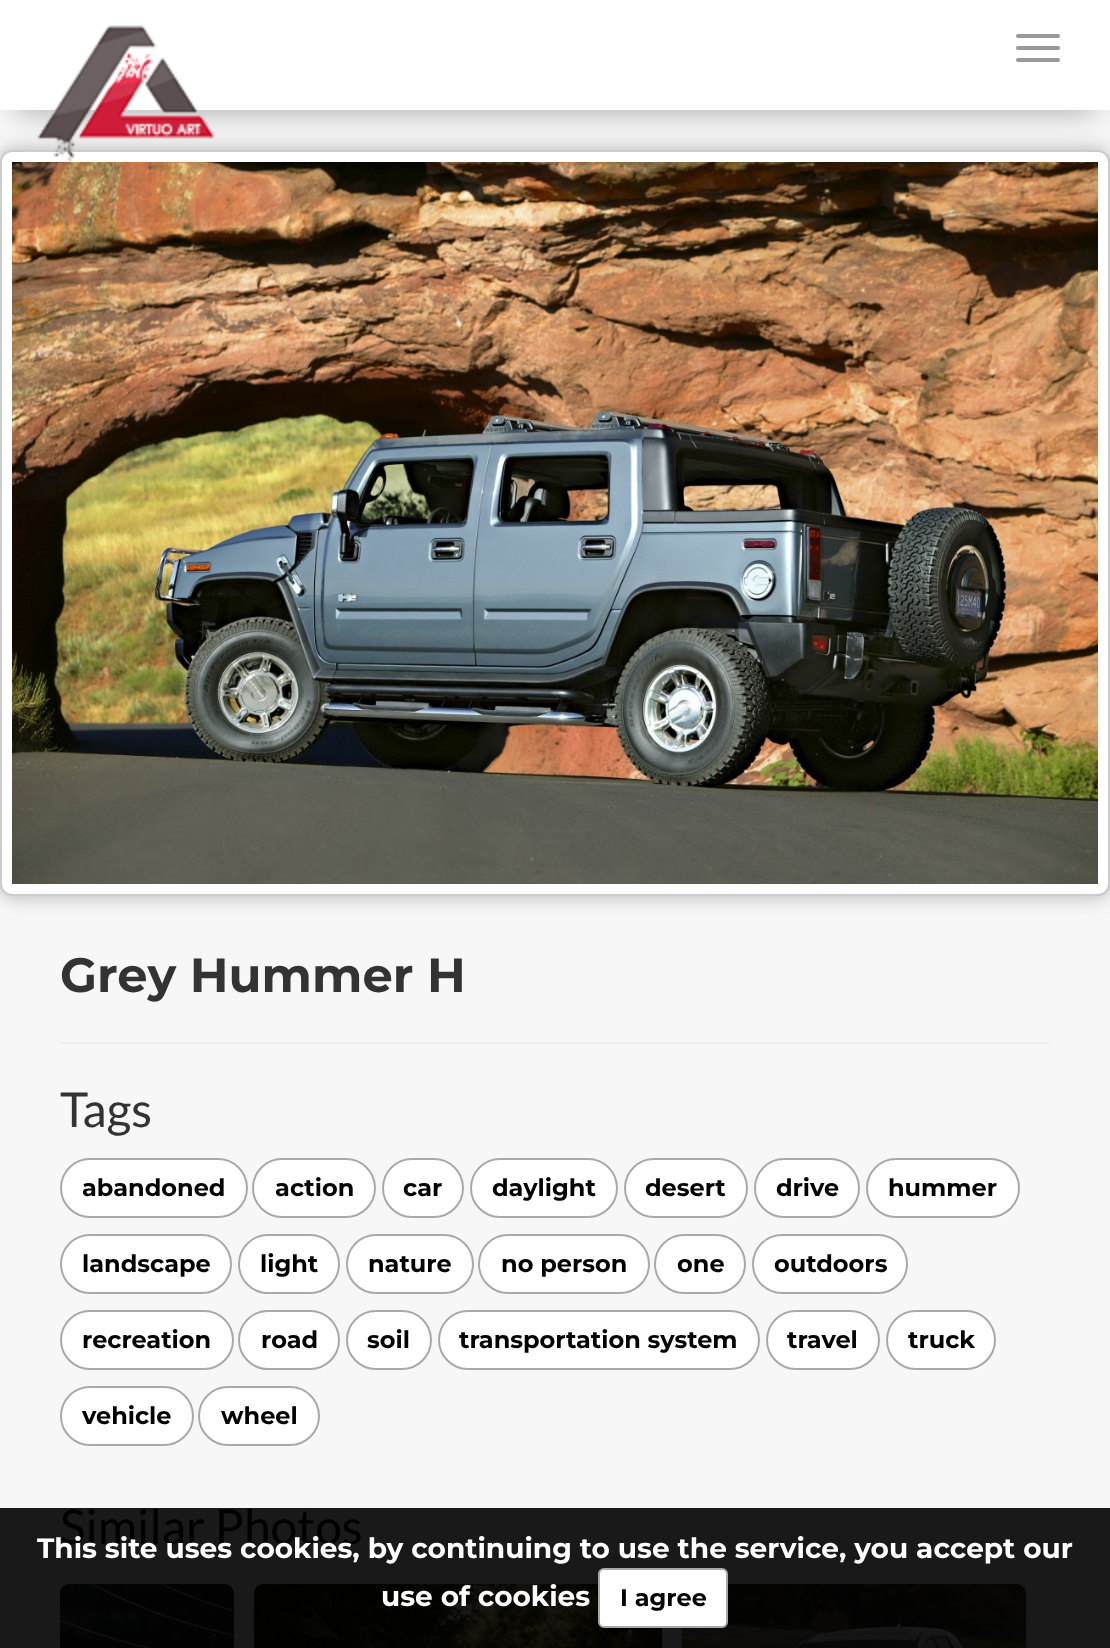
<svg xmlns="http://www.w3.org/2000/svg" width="1110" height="1648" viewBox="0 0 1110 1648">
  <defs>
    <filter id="blur1" x="-50%" y="-200%" width="200%" height="500%"><feGaussianBlur stdDeviation="10"/></filter>
    <filter id="blur2" x="-50%" y="-200%" width="200%" height="500%"><feGaussianBlur stdDeviation="15"/></filter>
  </defs>
  <rect width="100%" height="100%" fill="#f7f7f7"/>
  <rect x="0" y="1508" width="1110" height="140" fill="#191919"/>
  <rect x="0" y="150" width="1110" height="746" rx="12" fill="#b1b1b1" filter="url(#blur1)"/>
  <rect x="1" y="151" width="1108" height="744" rx="11" fill="#ffffff" stroke="#cccccc" stroke-width="2"/>
  <rect x="16" y="34" width="1078" height="78" fill="#919191" fill-opacity="0.75" filter="url(#blur2)"/>
  <rect x="0" y="0" width="1110" height="110" fill="#ffffff"/>
  <image x="12" y="162" width="1086" height="722" href="img2.png"/>
  <image x="37" y="25" width="178" height="138" href="img1.png"/>
  <rect x="1016" y="34" width="44" height="4" rx="2" fill="#999999"/>
  <rect x="1016" y="46" width="44" height="4" rx="2" fill="#999999"/>
  <rect x="1016" y="58" width="44" height="4" rx="2" fill="#999999"/>
  <text x="60" y="992" font-family="Montserrat" font-size="48" font-weight="100" fill="#333333">Grey Hummer H</text>
  <rect x="60" y="1042" width="990" height="2" fill="#eeeeee"/>
  <text x="60" y="1127" font-family="Lato" font-size="48" fill="#333333">Tags</text>
  <rect x="61" y="1159" width="186" height="58" rx="29" fill="#ffffff" stroke="#a9a9a9" stroke-width="2"/>
  <text x="82" y="1196" font-family="Montserrat" font-size="24" font-weight="100" fill="#000000">abandoned</text>
  <rect x="253" y="1159" width="122" height="58" rx="29" fill="#ffffff" stroke="#a9a9a9" stroke-width="2"/>
  <text x="275" y="1196" font-family="Montserrat" font-size="24" font-weight="100" fill="#000000">action</text>
  <rect x="383" y="1159" width="80" height="58" rx="29" fill="#ffffff" stroke="#a9a9a9" stroke-width="2"/>
  <text x="403" y="1196" font-family="Montserrat" font-size="24" font-weight="100" fill="#000000">car</text>
  <rect x="471" y="1159" width="146" height="58" rx="29" fill="#ffffff" stroke="#a9a9a9" stroke-width="2"/>
  <text x="492" y="1196" font-family="Montserrat" font-size="24" font-weight="100" fill="#000000">daylight</text>
  <rect x="625" y="1159" width="122" height="58" rx="29" fill="#ffffff" stroke="#a9a9a9" stroke-width="2"/>
  <text x="645" y="1196" font-family="Montserrat" font-size="24" font-weight="100" fill="#000000">desert</text>
  <rect x="755" y="1159" width="104" height="58" rx="29" fill="#ffffff" stroke="#a9a9a9" stroke-width="2"/>
  <text x="776" y="1196" font-family="Montserrat" font-size="24" font-weight="100" fill="#000000">drive</text>
  <rect x="867" y="1159" width="152" height="58" rx="29" fill="#ffffff" stroke="#a9a9a9" stroke-width="2"/>
  <text x="888" y="1196" font-family="Montserrat" font-size="24" font-weight="100" fill="#000000">hummer</text>
  <rect x="61" y="1235" width="170" height="58" rx="29" fill="#ffffff" stroke="#a9a9a9" stroke-width="2"/>
  <text x="82" y="1272" font-family="Montserrat" font-size="24" font-weight="100" fill="#000000">landscape</text>
  <rect x="239" y="1235" width="100" height="58" rx="29" fill="#ffffff" stroke="#a9a9a9" stroke-width="2"/>
  <text x="260" y="1272" font-family="Montserrat" font-size="24" font-weight="100" fill="#000000">light</text>
  <rect x="347" y="1235" width="126" height="58" rx="29" fill="#ffffff" stroke="#a9a9a9" stroke-width="2"/>
  <text x="368" y="1272" font-family="Montserrat" font-size="24" font-weight="100" fill="#000000">nature</text>
  <rect x="479" y="1235" width="170" height="58" rx="29" fill="#ffffff" stroke="#a9a9a9" stroke-width="2"/>
  <text x="501" y="1272" font-family="Montserrat" font-size="24" font-weight="100" fill="#000000">no person</text>
  <rect x="655" y="1235" width="90" height="58" rx="29" fill="#ffffff" stroke="#a9a9a9" stroke-width="2"/>
  <text x="677" y="1272" font-family="Montserrat" font-size="24" font-weight="100" fill="#000000">one</text>
  <rect x="753" y="1235" width="154" height="58" rx="29" fill="#ffffff" stroke="#a9a9a9" stroke-width="2"/>
  <text x="774" y="1272" font-family="Montserrat" font-size="24" font-weight="100" fill="#000000">outdoors</text>
  <rect x="61" y="1311" width="172" height="58" rx="29" fill="#ffffff" stroke="#a9a9a9" stroke-width="2"/>
  <text x="82" y="1348" font-family="Montserrat" font-size="24" font-weight="100" fill="#000000">recreation</text>
  <rect x="239" y="1311" width="100" height="58" rx="29" fill="#ffffff" stroke="#a9a9a9" stroke-width="2"/>
  <text x="261" y="1348" font-family="Montserrat" font-size="24" font-weight="100" fill="#000000">road</text>
  <rect x="347" y="1311" width="84" height="58" rx="29" fill="#ffffff" stroke="#a9a9a9" stroke-width="2"/>
  <text x="367" y="1348" font-family="Montserrat" font-size="24" font-weight="100" fill="#000000">soil</text>
  <rect x="439" y="1311" width="320" height="58" rx="29" fill="#ffffff" stroke="#a9a9a9" stroke-width="2"/>
  <text x="459" y="1348" font-family="Montserrat" font-size="24" font-weight="100" fill="#000000">transportation system</text>
  <rect x="767" y="1311" width="112" height="58" rx="29" fill="#ffffff" stroke="#a9a9a9" stroke-width="2"/>
  <text x="787" y="1348" font-family="Montserrat" font-size="24" font-weight="100" fill="#000000">travel</text>
  <rect x="887" y="1311" width="108" height="58" rx="29" fill="#ffffff" stroke="#a9a9a9" stroke-width="2"/>
  <text x="908" y="1348" font-family="Montserrat" font-size="24" font-weight="100" fill="#000000">truck</text>
  <rect x="61" y="1387" width="132" height="58" rx="29" fill="#ffffff" stroke="#a9a9a9" stroke-width="2"/>
  <text x="82" y="1424" font-family="Montserrat" font-size="24" font-weight="100" fill="#000000">vehicle</text>
  <rect x="199" y="1387" width="120" height="58" rx="29" fill="#ffffff" stroke="#a9a9a9" stroke-width="2"/>
  <text x="221" y="1424" font-family="Montserrat" font-size="24" font-weight="100" fill="#000000">wheel</text>
  <text x="60" y="1544" font-family="Lato" font-size="48" fill="#000000">Similar Photos</text>
  <rect x="59" y="1583" width="176" height="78" rx="11" fill="#050202" stroke="#181818" stroke-width="2"/>
  <image x="60" y="1584" width="174" height="64" href="img3.png"/>
  <rect x="253" y="1583" width="410" height="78" rx="11" fill="#110303" stroke="#181818" stroke-width="2"/>
  <image x="254" y="1584" width="408" height="64" href="img4.png"/>
  <rect x="681" y="1583" width="346" height="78" rx="11" fill="#0b0a05" stroke="#181818" stroke-width="2"/>
  <image x="682" y="1584" width="344" height="64" href="img5.png"/>
  <text x="37" y="1558" font-family="Montserrat" font-size="28" font-weight="100" fill="#ffffff">This site uses cookies, by continuing to use the service, you accept our</text>
  <text x="381" y="1606" font-family="Montserrat" font-size="28" font-weight="100" fill="#ffffff">use of cookies</text>
  <rect x="599" y="1569" width="128" height="58" rx="5" fill="#ffffff" stroke="#a9a9a9" stroke-width="2"/>
  <text x="620" y="1606" font-family="Montserrat" font-size="24" font-weight="100" fill="#000000">I agree</text>
</svg>
